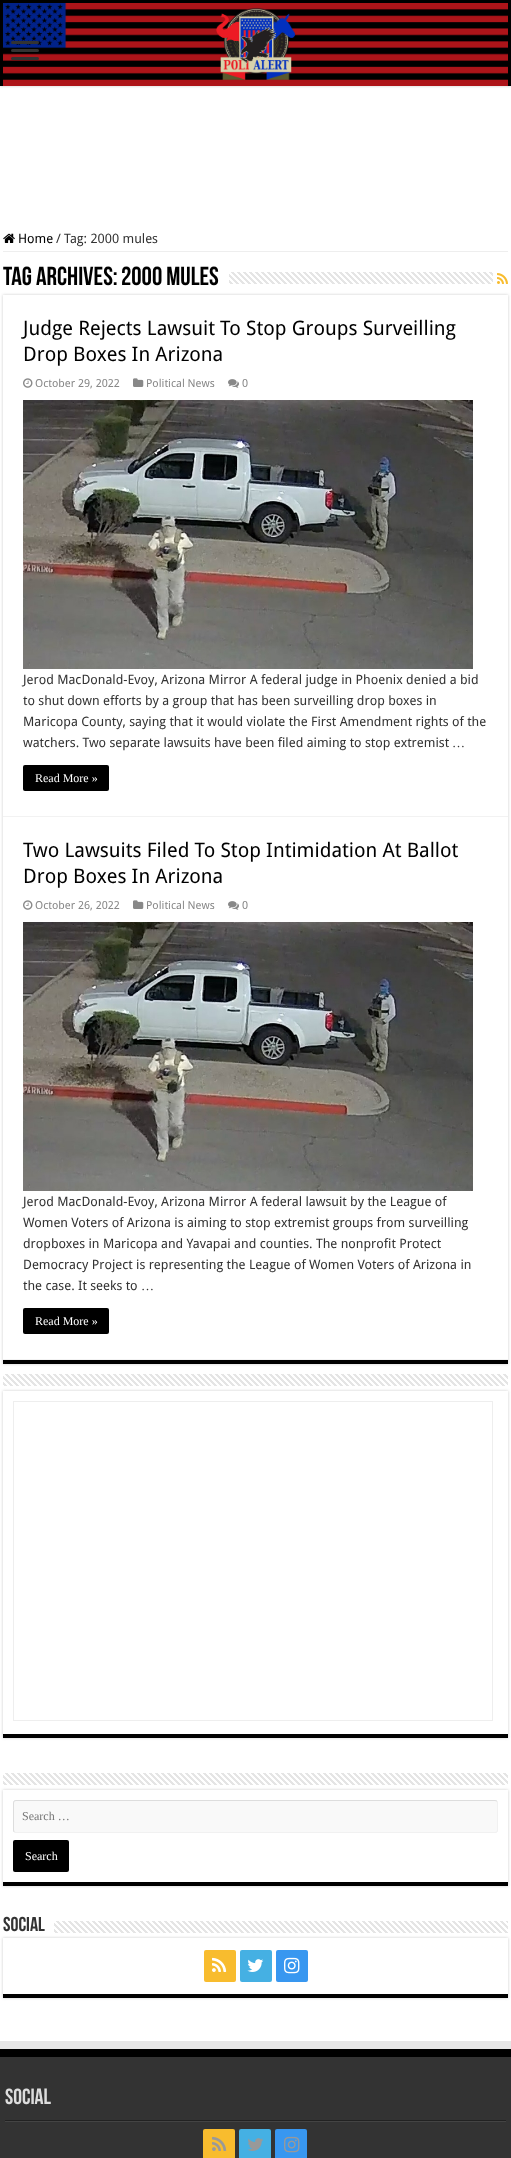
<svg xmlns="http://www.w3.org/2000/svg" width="511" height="2158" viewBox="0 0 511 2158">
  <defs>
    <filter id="blur1" x="-50%" y="-200%" width="200%" height="500%"><feGaussianBlur stdDeviation="1.5"/></filter>
    <clipPath id="clip1"><rect x="3" y="262" width="505" height="33"/></clipPath>
    <clipPath id="clip2"><path d="M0 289H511V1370H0ZM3 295H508V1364H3Z" clip-rule="evenodd"/></clipPath>
    <clipPath id="clip3"><path d="M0 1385H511V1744H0ZM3 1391H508V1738H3Z" clip-rule="evenodd"/></clipPath>
    <clipPath id="clip4"><path d="M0 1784H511V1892H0ZM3 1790H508V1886H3Z" clip-rule="evenodd"/></clipPath>
    <clipPath id="clip5"><path d="M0 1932H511V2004H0ZM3 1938H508V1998H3Z" clip-rule="evenodd"/></clipPath>
  </defs>
  <rect width="100%" height="100%" fill="#ffffff"/>
  <rect x="0" y="0" width="511" height="86" fill="#cacaca" filter="url(#blur1)"/>
  <rect x="0" y="0" width="511" height="86" fill="#000000"/>
  <image x="3" y="3" width="505" height="83" href="img1.png"/>
  <rect x="11" y="41" width="28" height="3" rx="1.5" fill="#333333"/>
  <rect x="11" y="49" width="28" height="3" rx="1.5" fill="#333333"/>
  <rect x="11" y="57" width="28" height="3" rx="1.5" fill="#333333"/>
  <rect x="3" y="251" width="505" height="1" fill="#eeeeee"/>
  <image x="3" y="233" width="12" height="10" href="img2.png"/>
  <text x="18" y="243" font-family="Droid Sans" font-size="13" fill="#000000">Home</text>
  <text x="56" y="243" font-family="Droid Sans" font-size="13" fill="#333333">/</text>
  <text x="64" y="243" font-family="Droid Sans" font-size="13" fill="#333333">Tag: 2000 mules</text>
  <g clip-path="url(#clip1)">
    <text x="3" y="285" font-family="Bebas Neue" font-size="26" font-weight="bold" fill="#000000">Tag Archives:</text>
  </g>
  <text x="121" y="285" font-family="Bebas Neue" font-size="26" font-weight="bold" fill="#000000">2000 mules</text>
  <image x="229" y="272" width="264" height="12" href="img3.png"/>
  <image x="497" y="273" width="11" height="11" href="img4.png"/>
  <g clip-path="url(#clip2)">
    <rect x="3" y="295" width="505" height="1069" fill="#cacaca" filter="url(#blur1)"/>
  </g>
  <rect x="3" y="1360" width="505" height="4" fill="#000000"/>
  <rect x="3" y="816" width="505" height="1" fill="#f2f2f2"/>
  <text x="23" y="335" font-family="Droid Sans" font-size="20" fill="#000000">Judge Rejects Lawsuit To Stop Groups Surveilling</text>
  <text x="23" y="361" font-family="Droid Sans" font-size="20" fill="#000000">Drop Boxes In Arizona</text>
  <image x="23" y="378" width="10" height="10" href="img5.png"/>
  <text x="35" y="387" font-family="Droid Sans" font-size="11" fill="#888888">October 29, 2022</text>
  <image x="133" y="378" width="11" height="9" href="img6.png"/>
  <text x="146" y="387" font-family="Droid Sans" font-size="11" fill="#888888">Political News</text>
  <image x="228" y="379" width="11" height="9" href="img7.png"/>
  <text x="242" y="387" font-family="Droid Sans" font-size="11" fill="#888888">0</text>
  <image x="23" y="400" width="450" height="269" href="img8.png"/>
  <text x="23" y="684" font-family="Droid Sans" font-size="13" fill="#333333">Jerod MacDonald-Evoy, Arizona Mirror A federal judge in Phoenix denied a bid</text>
  <text x="23" y="705" font-family="Droid Sans" font-size="13" fill="#333333">to shut down efforts by a group that has been surveilling drop boxes in</text>
  <text x="23" y="726" font-family="Droid Sans" font-size="13" fill="#333333">Maricopa County, saying that it would violate the First Amendment rights of the</text>
  <text x="23" y="747" font-family="Droid Sans" font-size="13" fill="#333333">watchers. Two separate lawsuits have been filed aiming to stop extremist</text>
  <text x="452" y="747" font-family="Liberation Serif" font-size="13" fill="#333333">…</text>
  <rect x="23" y="765" width="86" height="26" rx="2" fill="#000000"/>
  <text x="35" y="782" font-family="Liberation Serif" font-size="12" fill="#ffffff">Read More »</text>
  <rect x="3" y="1359" width="505" height="1" fill="#f2f2f2"/>
  <text x="23" y="857" font-family="Droid Sans" font-size="20" fill="#000000">Two Lawsuits Filed To Stop Intimidation At Ballot</text>
  <text x="23" y="883" font-family="Droid Sans" font-size="20" fill="#000000">Drop Boxes In Arizona</text>
  <image x="23" y="900" width="10" height="10" href="img5.png"/>
  <text x="35" y="909" font-family="Droid Sans" font-size="11" fill="#888888">October 26, 2022</text>
  <image x="133" y="900" width="11" height="9" href="img6.png"/>
  <text x="146" y="909" font-family="Droid Sans" font-size="11" fill="#888888">Political News</text>
  <image x="228" y="901" width="11" height="9" href="img7.png"/>
  <text x="242" y="909" font-family="Droid Sans" font-size="11" fill="#888888">0</text>
  <image x="23" y="922" width="450" height="269" href="img8.png"/>
  <text x="23" y="1206" font-family="Droid Sans" font-size="13" fill="#333333">Jerod MacDonald-Evoy, Arizona Mirror A federal lawsuit by the League of</text>
  <text x="23" y="1227" font-family="Droid Sans" font-size="13" fill="#333333">Women Voters of Arizona is aiming to stop extremist groups from surveilling</text>
  <text x="23" y="1248" font-family="Droid Sans" font-size="13" fill="#333333">dropboxes in Maricopa and Yavapai and counties. The nonprofit Protect</text>
  <text x="23" y="1269" font-family="Droid Sans" font-size="13" fill="#333333">Democracy Project is representing the League of Women Voters of Arizona in</text>
  <text x="23" y="1290" font-family="Droid Sans" font-size="13" fill="#333333">the case. It seeks to</text>
  <text x="141" y="1290" font-family="Liberation Serif" font-size="13" fill="#333333">…</text>
  <rect x="23" y="1308" width="86" height="26" rx="2" fill="#000000"/>
  <text x="35" y="1325" font-family="Liberation Serif" font-size="12" fill="#ffffff">Read More »</text>
  <g clip-path="url(#clip3)">
    <rect x="3" y="1391" width="505" height="347" fill="#cacaca" filter="url(#blur1)"/>
  </g>
  <image x="3" y="1374" width="505" height="12" href="img9.png"/>
  <rect x="3" y="1734" width="505" height="4" fill="#000000"/>
  <rect x="13.5" y="1401.5" width="479" height="319" fill="none" stroke="#eeeeee"/>
  <g clip-path="url(#clip4)">
    <rect x="3" y="1790" width="505" height="96" fill="#cacaca" filter="url(#blur1)"/>
  </g>
  <image x="3" y="1773" width="505" height="12" href="img9.png"/>
  <rect x="3" y="1882" width="505" height="4" fill="#000000"/>
  <rect x="13" y="1800" width="485" height="33" rx="3" fill="#f9f9f9"/>
  <path d="M497 1801L497.5 1803V1830L497 1832L495 1832.5H16L14 1832" fill="none" stroke="#f1f1f1"/>
  <path d="M14 1832L13.5 1830V1803L14 1801L16 1800.5H495L497 1801" fill="none" stroke="#dddddd"/>
  <text x="22" y="1820" font-family="Liberation Serif" font-size="12" fill="#757575">Search …</text>
  <rect x="13" y="1840" width="56" height="32" rx="2" fill="#000000"/>
  <text x="25" y="1860" font-family="Liberation Serif" font-size="12" fill="#ffffff">Search</text>
  <text x="3" y="1931" font-family="Bebas Neue" font-size="20" font-weight="bold" fill="#333333">Social</text>
  <g clip-path="url(#clip5)">
    <rect x="3" y="1938" width="505" height="60" fill="#cacaca" filter="url(#blur1)"/>
  </g>
  <image x="54" y="1921" width="454" height="12" href="img10.png"/>
  <rect x="3" y="1994" width="505" height="4" fill="#000000"/>
  <rect x="204" y="1950" width="32" height="32" rx="2" fill="#f8bc2e"/>
  <image x="212" y="1957" width="15" height="15" href="img11.png"/>
  <rect x="240" y="1950" width="32" height="32" rx="2" fill="#45b0e3"/>
  <image x="247" y="1959" width="17" height="13" href="img12.png"/>
  <rect x="276" y="1950" width="32" height="32" rx="2" fill="#3897f0"/>
  <image x="284" y="1957" width="16" height="17" href="img13.png"/>
  <rect x="0" y="2041" width="511" height="8" fill="#e6e6e6"/>
  <rect x="0" y="2057" width="511" height="101" fill="#333333"/>
  <rect x="0" y="2049" width="511" height="8" fill="#000000"/>
  <rect x="5" y="2120" width="501" height="1" fill="#222222"/>
  <text x="5" y="2104" font-family="Bebas Neue" font-size="22" font-weight="bold" fill="#dddddd">Social</text>
  <rect x="5" y="2121" width="501" height="1" fill="#444444"/>
  <rect x="203" y="2129" width="32" height="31" rx="2" fill="#f8bc2e"/>
  <image x="212" y="2136" width="15" height="15" href="img14.png"/>
  <rect x="239" y="2129" width="32" height="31" rx="2" fill="#45b0e3"/>
  <image x="247" y="2138" width="16" height="13" href="img15.png"/>
  <rect x="275" y="2129" width="32" height="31" rx="2" fill="#3897f0"/>
  <image x="284" y="2136" width="16" height="17" href="img16.png"/>
</svg>
